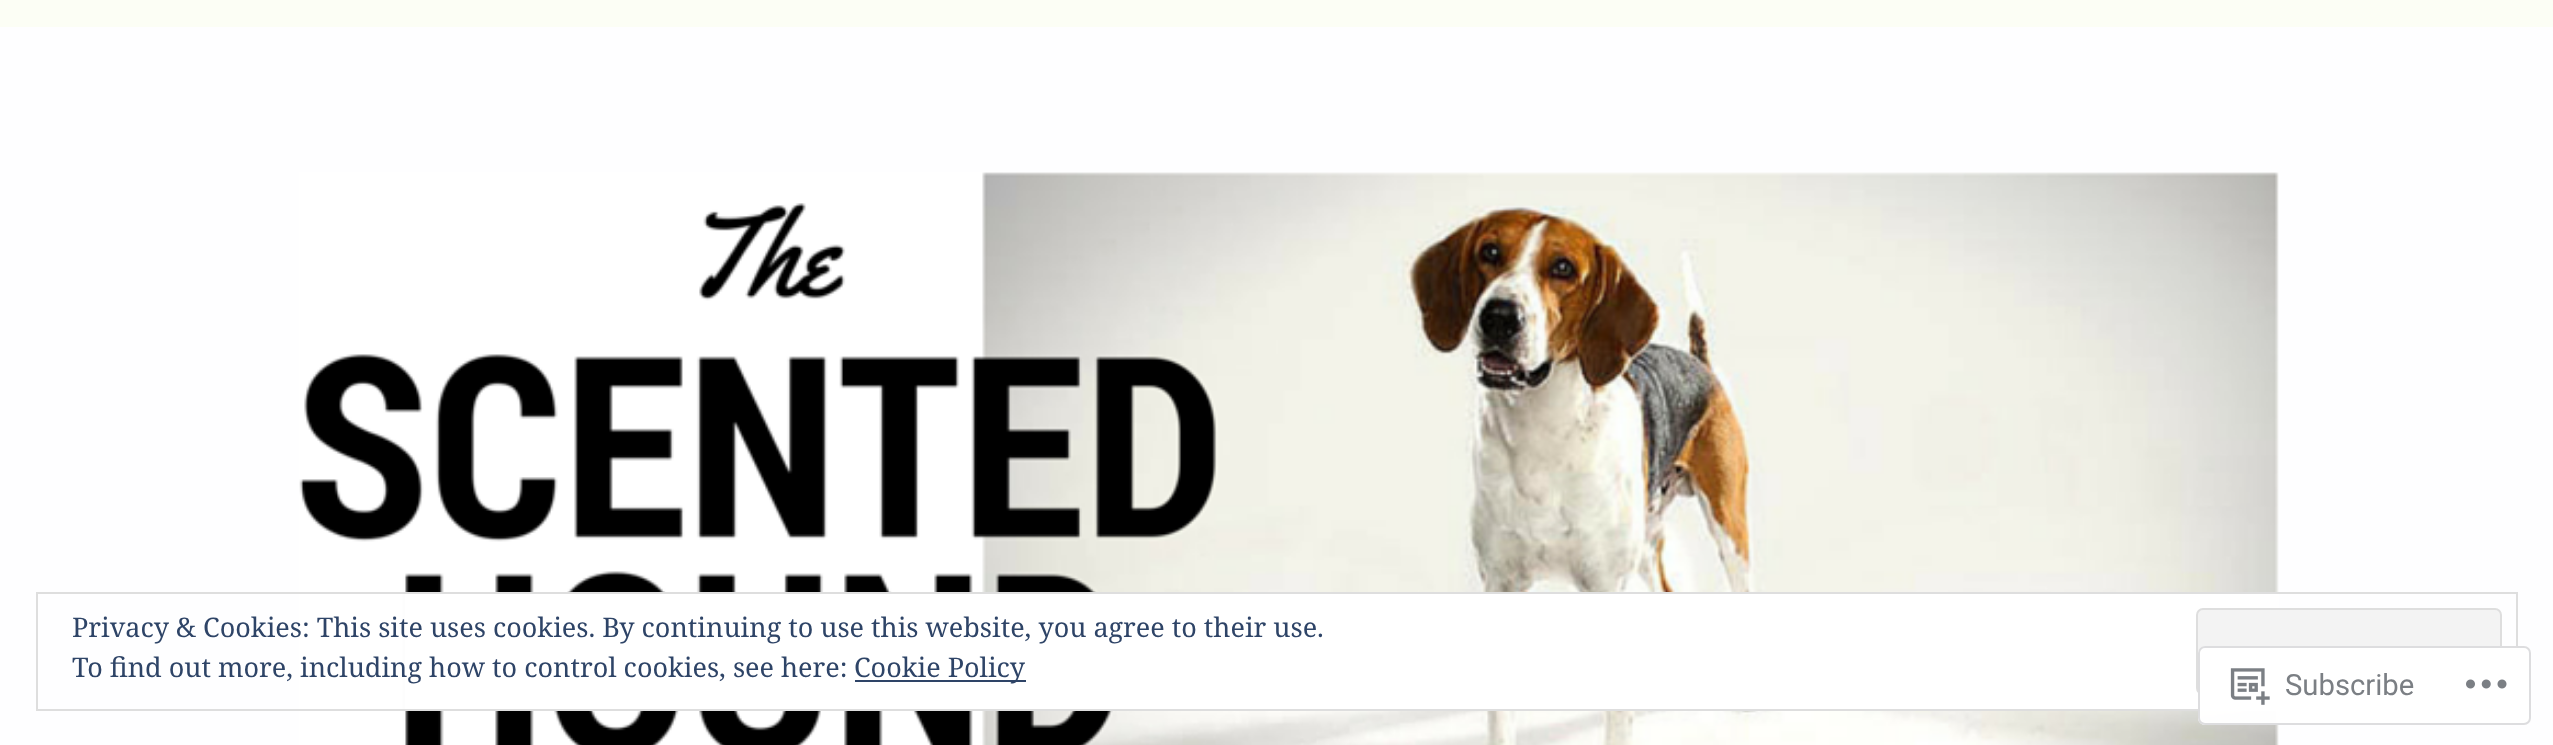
<svg xmlns="http://www.w3.org/2000/svg" width="2553" height="745" viewBox="0 0 2553 745">
  <rect width="100%" height="100%" fill="#fcfef5"/>
  <rect x="0" y="27" width="2553" height="718" fill="#fefeff"/>
  <image x="299" y="172" width="1980" height="573" href="img1.png"/>
  <rect x="405" y="594" width="1874" height="115" fill="#ffffff"/>
  <rect x="37" y="593" width="2480" height="117" fill="none" stroke="#dedede" stroke-width="2"/>
  <text x="72" y="637" font-family="Noto Serif" font-size="27" fill="#2e4467">Privacy &amp; Cookies: This site uses cookies. By continuing to use this website, you agree to their use.</text>
  <rect x="2197" y="609" width="304" height="85" rx="6" fill="#f3f3f3" stroke="#dedede" stroke-width="2"/>
  <text x="72" y="677" font-family="Noto Serif" font-size="27" fill="#2e4467">To find out more, including how to control cookies, see here:</text>
  <rect x="855" y="680" width="171" height="2" fill="#2e4467"/>
  <text x="854" y="677" font-family="Noto Serif" font-size="27" fill="#2e4467">Cookie Policy</text>
  <rect x="2198" y="646" width="333" height="79" rx="7" fill="#ffffff" fill-opacity="0.98"/>
  <rect x="2199" y="647" width="331" height="77" rx="6" fill="none" stroke="#dcdcde" stroke-opacity="0.98" stroke-width="2"/>
  <image x="2230" y="668" width="40" height="37" href="img2.png"/>
  <text x="2285" y="695" font-family="Roboto" font-size="29.25" fill="#7b7f84">Subscribe</text>
  <image x="2466" y="679" width="41" height="10" href="img3.png"/>
</svg>
